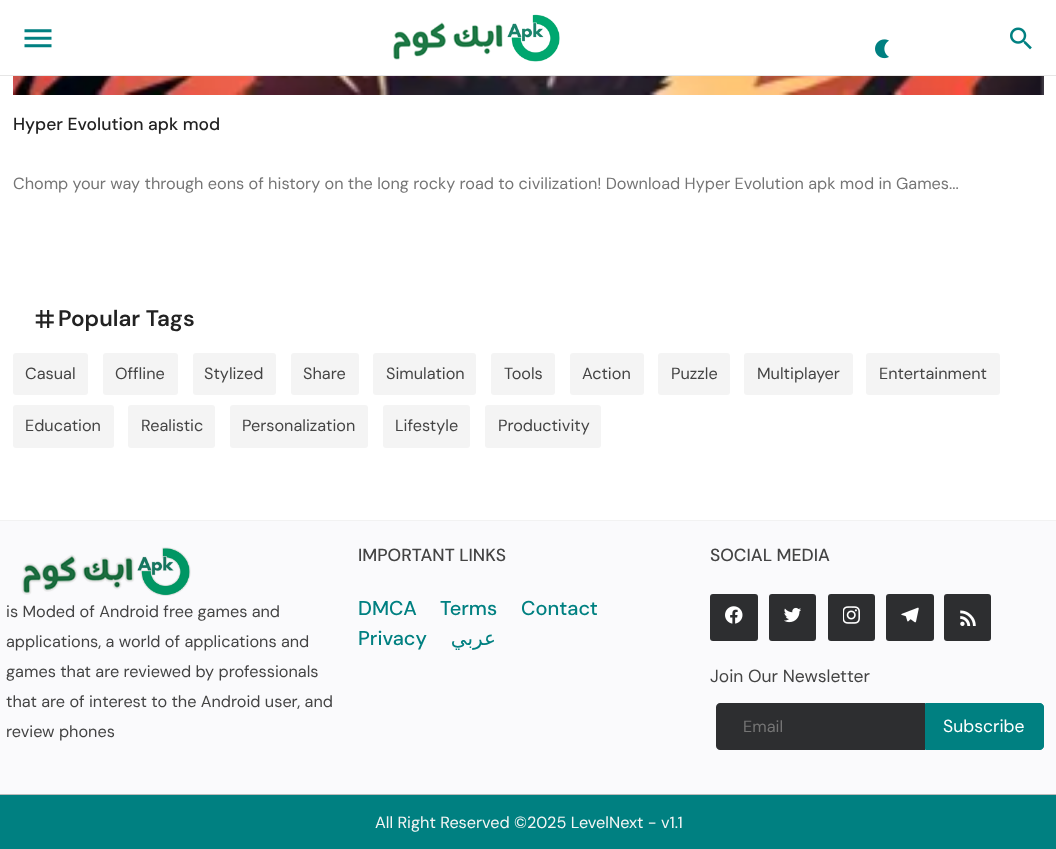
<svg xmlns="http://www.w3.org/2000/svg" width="1056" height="849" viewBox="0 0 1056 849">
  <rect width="100%" height="100%" fill="#ffffff"/>
  <rect x="0" y="75" width="1056" height="1" fill="#e6e6e6"/>
  <image x="24" y="29" width="28" height="19" href="img1.png"/>
  <image x="393" y="14" width="167" height="48" href="img2.png"/>
  <image x="875" y="39" width="14" height="20" href="img3.png"/>
  <image x="1010" y="27" width="22" height="23" href="img4.png"/>
  <image x="13" y="76" width="1031" height="19" href="img5.png"/>
  <text x="13" y="130" font-family="DM Sans" font-size="17.5" font-weight="500" fill="#222222">Hyper Evolution apk mod</text>
  <text x="13" y="189" font-family="DM Sans" font-size="16.25" fill="#757575">Chomp your way through eons of history on the long rocky road to civilization! Download Hyper Evolution apk mod in Games...</text>
  <image x="35" y="310" width="19" height="18" href="img6.png"/>
  <text x="58" y="326" font-family="DM Sans" font-size="22.5" font-weight="600" fill="#222222">Popular Tags</text>
  <rect x="13" y="353" width="75" height="42" rx="3" fill="#f4f4f4"/>
  <text x="25" y="379" font-family="DM Sans" font-size="16.25" fill="#444444">Casual</text>
  <rect x="103" y="353" width="75" height="42" rx="3" fill="#f4f4f4"/>
  <text x="115" y="379" font-family="DM Sans" font-size="16.25" fill="#444444">Offline</text>
  <rect x="193" y="353" width="83" height="42" rx="3" fill="#f4f4f4"/>
  <text x="204" y="379" font-family="DM Sans" font-size="16.25" fill="#444444">Stylized</text>
  <rect x="291" y="353" width="68" height="42" rx="3" fill="#f4f4f4"/>
  <text x="303" y="379" font-family="DM Sans" font-size="16.25" fill="#444444">Share</text>
  <rect x="373" y="353" width="103" height="42" rx="3" fill="#f4f4f4"/>
  <text x="386" y="379" font-family="DM Sans" font-size="16.25" fill="#444444">Simulation</text>
  <rect x="491" y="353" width="64" height="42" rx="3" fill="#f4f4f4"/>
  <text x="504" y="379" font-family="DM Sans" font-size="16.25" fill="#444444">Tools</text>
  <rect x="570" y="353" width="74" height="42" rx="3" fill="#f4f4f4"/>
  <text x="582" y="379" font-family="DM Sans" font-size="16.25" fill="#444444">Action</text>
  <rect x="658" y="353" width="72" height="42" rx="3" fill="#f4f4f4"/>
  <text x="671" y="379" font-family="DM Sans" font-size="16.25" fill="#444444">Puzzle</text>
  <rect x="744" y="353" width="109" height="42" rx="3" fill="#f4f4f4"/>
  <text x="757" y="379" font-family="DM Sans" font-size="16.25" fill="#444444">Multiplayer</text>
  <rect x="866" y="353" width="134" height="42" rx="3" fill="#f4f4f4"/>
  <text x="879" y="379" font-family="DM Sans" font-size="16.25" fill="#444444">Entertainment</text>
  <rect x="13" y="405" width="101" height="43" rx="3" fill="#f4f4f4"/>
  <text x="25" y="431" font-family="DM Sans" font-size="16.25" fill="#444444">Education</text>
  <rect x="128" y="405" width="87" height="43" rx="3" fill="#f4f4f4"/>
  <text x="141" y="431" font-family="DM Sans" font-size="16.25" fill="#444444">Realistic</text>
  <rect x="230" y="405" width="138" height="43" rx="3" fill="#f4f4f4"/>
  <text x="242" y="431" font-family="DM Sans" font-size="16.25" fill="#444444">Personalization</text>
  <rect x="383" y="405" width="87" height="43" rx="3" fill="#f4f4f4"/>
  <text x="395" y="431" font-family="DM Sans" font-size="16.25" fill="#444444">Lifestyle</text>
  <rect x="485" y="405" width="116" height="43" rx="3" fill="#f4f4f4"/>
  <text x="498" y="431" font-family="DM Sans" font-size="16.25" fill="#444444">Productivity</text>
  <rect x="0" y="520" width="1056" height="1" fill="#f2f2f2"/>
  <rect x="0" y="521" width="1056" height="273" fill="#fafafc"/>
  <image x="21" y="547" width="170" height="49" href="img7.png"/>
  <text x="6" y="617" font-family="DM Sans" font-size="16.25" fill="#444444">is Moded of Android free games and</text>
  <text x="6" y="647" font-family="DM Sans" font-size="16.25" fill="#444444">applications, a world of applications and</text>
  <text x="6" y="677" font-family="DM Sans" font-size="16.25" fill="#444444">games that are reviewed by professionals</text>
  <text x="6" y="707" font-family="DM Sans" font-size="16.25" fill="#444444">that are of interest to the Android user, and</text>
  <text x="6" y="737" font-family="DM Sans" font-size="16.25" fill="#444444">review phones</text>
  <text x="358" y="561" font-family="DM Sans" font-size="17.5" font-weight="500" fill="#444444">IMPORTANT LINKS</text>
  <text x="358" y="615" font-family="'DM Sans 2'" font-size="20" font-weight="500" fill="#008081">DMCA</text>
  <text x="440" y="615" font-family="'DM Sans 2'" font-size="20" font-weight="500" fill="#008081">Terms</text>
  <text x="521" y="615" font-family="'DM Sans 2'" font-size="20" font-weight="500" fill="#008081">Contact</text>
  <text x="358" y="645" font-family="'DM Sans 2'" font-size="20" font-weight="500" fill="#008081">Privacy</text>
  <text x="496" y="645" font-family="DejaVu Sans" font-size="20" direction="rtl" fill="#008081">عربي</text>
  <text x="710" y="561" font-family="DM Sans" font-size="17.5" font-weight="500" fill="#444444">SOCIAL MEDIA</text>
  <rect x="710" y="594" width="48" height="47" rx="3" fill="#2d2e30"/>
  <image x="725" y="606" width="18" height="18" href="img8.png"/>
  <rect x="769" y="594" width="47" height="47" rx="3" fill="#2d2e30"/>
  <image x="784" y="607" width="17" height="16" href="img9.png"/>
  <rect x="828" y="594" width="47" height="47" rx="3" fill="#2d2e30"/>
  <image x="843" y="606" width="17" height="18" href="img10.png"/>
  <rect x="886" y="594" width="48" height="47" rx="3" fill="#2d2e30"/>
  <image x="901" y="607" width="18" height="16" href="img11.png"/>
  <rect x="944" y="594" width="47" height="47" rx="3" fill="#2d2e30"/>
  <image x="960" y="610" width="16" height="16" href="img12.png"/>
  <text x="710" y="682" font-family="'DM Sans 2'" font-size="17.5" fill="#444444">Join Our Newsletter</text>
  <path d="M720 703H925V750H720C718 750 716 748 716 746V707C716 705 718 703 720 703Z" fill="#2d2e30"/>
  <text x="743" y="732" font-family="DM Sans" font-size="16.25" fill="#757575">Email</text>
  <path d="M925.5 703.5H1040C1042 703.5 1043.5 705 1043.5 707V746C1043.5 748 1042 749.5 1040 749.5H925.5Z" fill="#008081" stroke="#008081"/>
  <text x="943" y="732" font-family="'DM Sans 2'" font-size="17.5" fill="#ffffff">Subscribe</text>
  <rect x="0" y="795" width="1056" height="54" fill="#008081"/>
  <rect x="0" y="794" width="1056" height="1" fill="#bbbbbb"/>
  <text x="375" y="828" font-family="DM Sans" font-size="16.25" fill="#f5f5f5">All Right Reserved ©2025 LevelNext - v1.1</text>
</svg>
